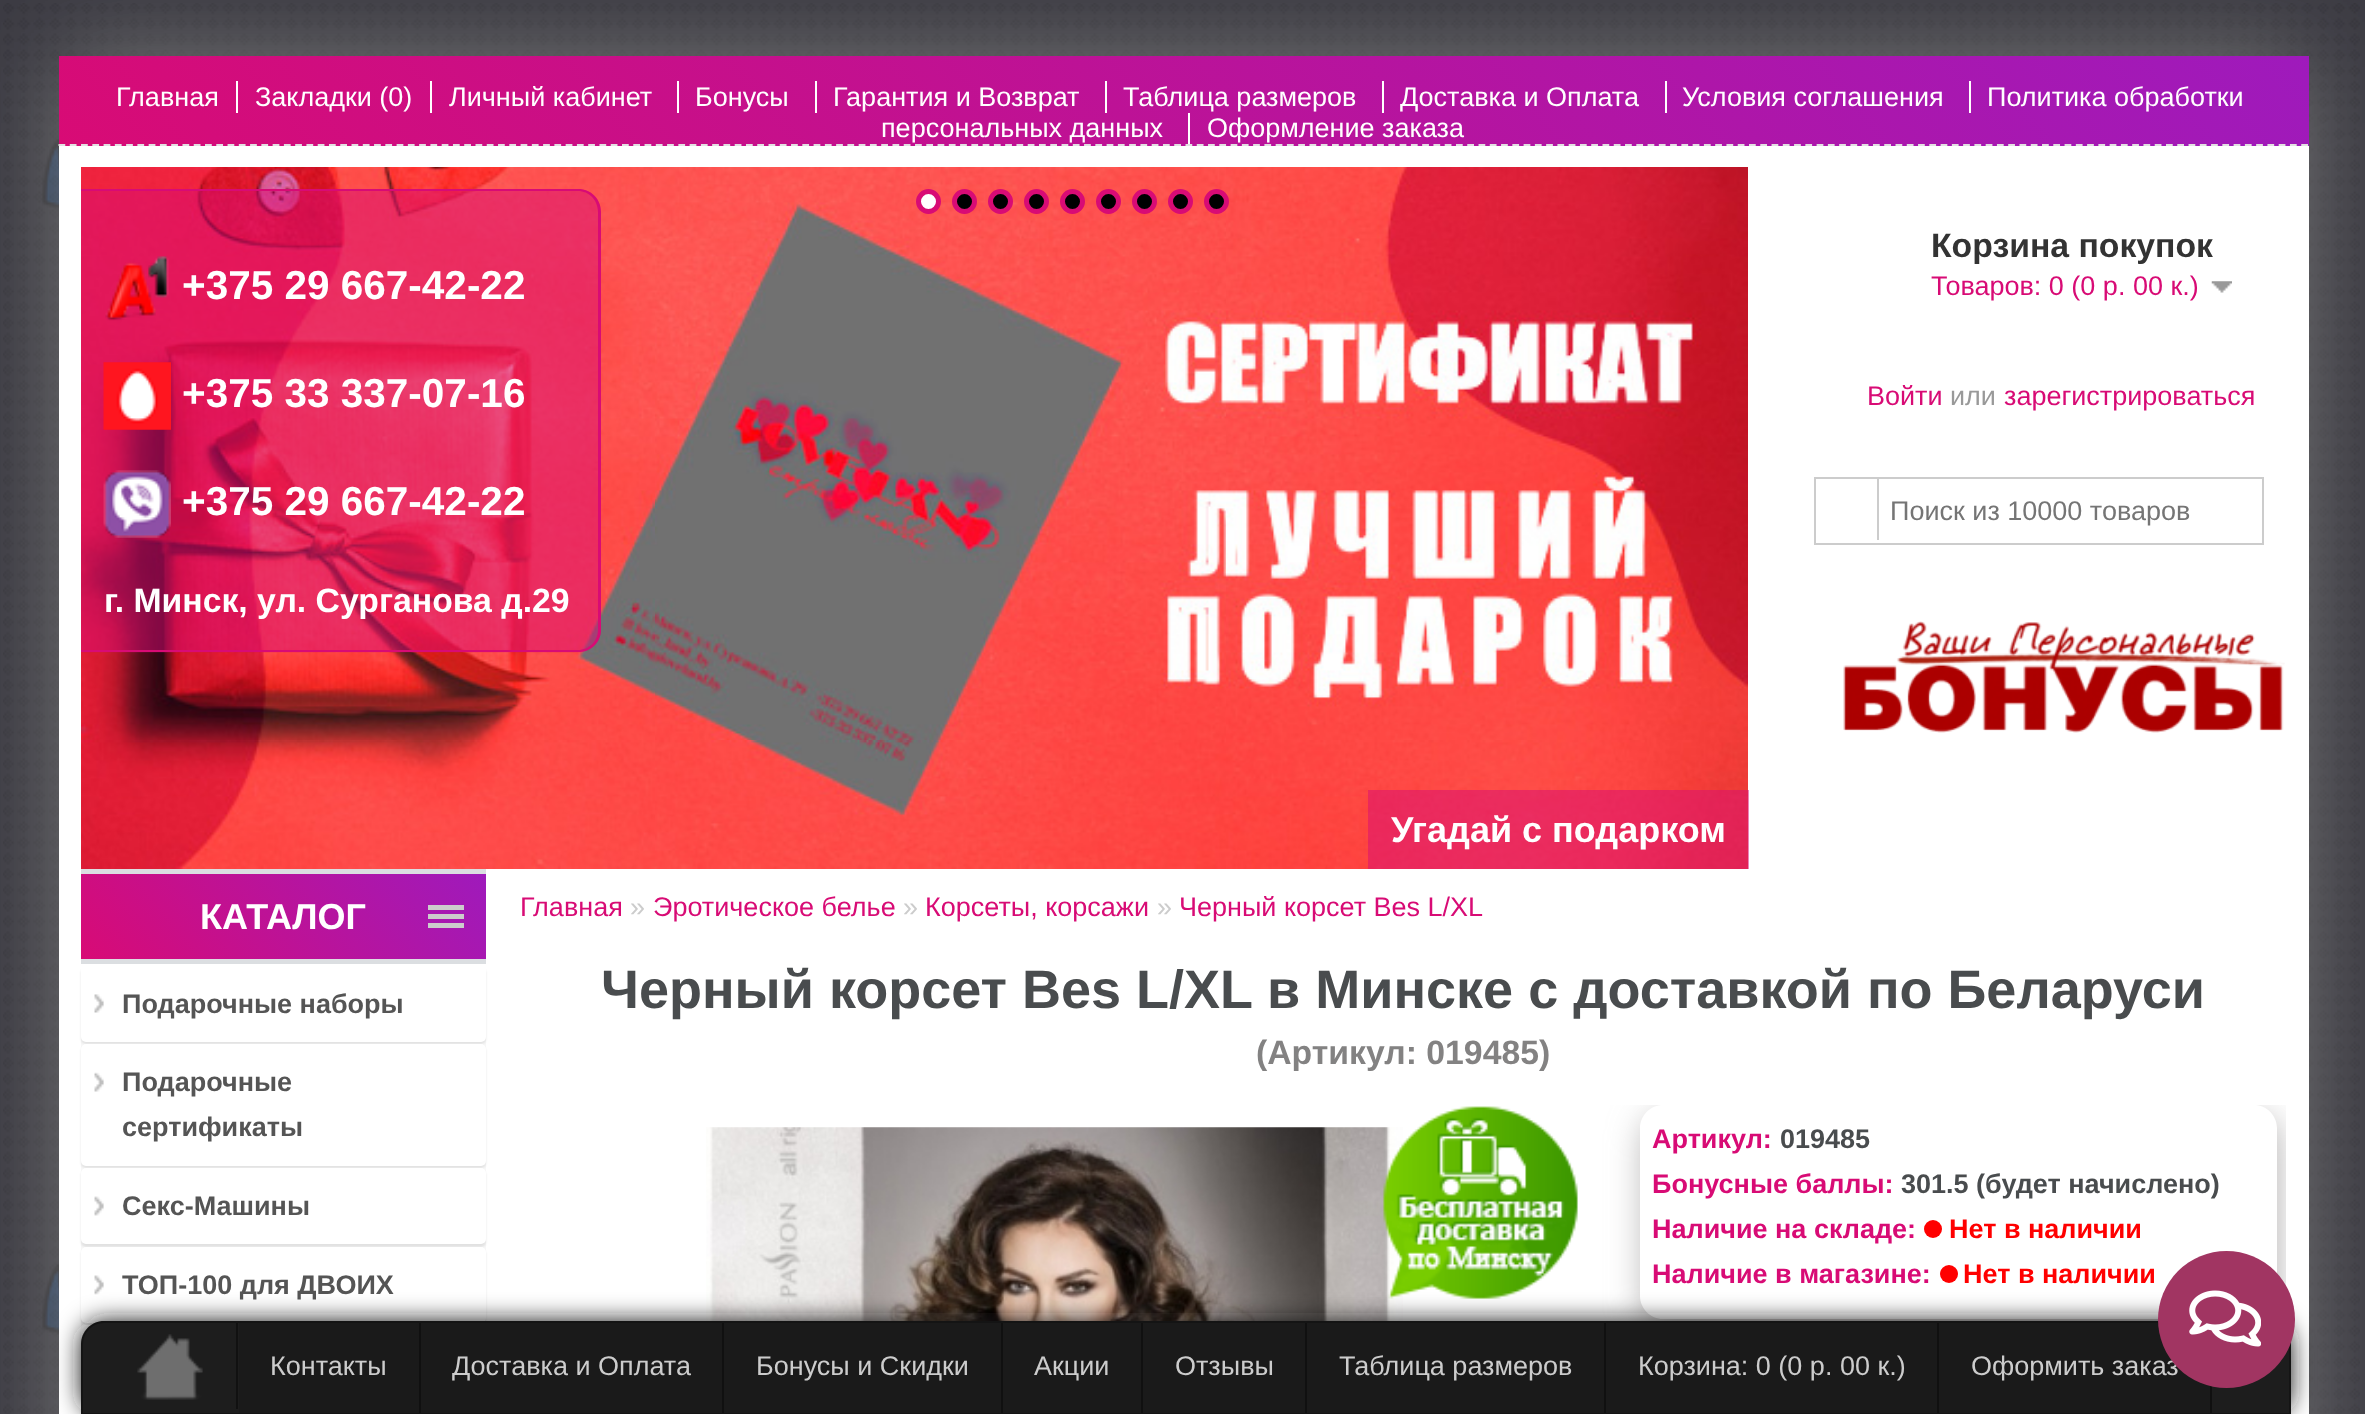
<svg xmlns="http://www.w3.org/2000/svg" width="2365" height="1414" viewBox="0 0 2365 1414">
  <defs>
    <filter id="blur1" x="-50%" y="-200%" width="200%" height="500%"><feGaussianBlur stdDeviation="50.5"/></filter>
    <linearGradient id="g1" gradientUnits="userSpaceOnUse" x1="502" y1="672" x2="2138" y2="-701"><stop offset="0" stop-color="#d80b75"/><stop offset="1" stop-color="#931dca"/></linearGradient>
    <linearGradient id="g2" gradientUnits="userSpaceOnUse" x1="502" y1="760" x2="2138" y2="-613"><stop offset="0" stop-color="#d80b75"/><stop offset="1" stop-color="#931dca"/></linearGradient>
    <clipPath id="clip1"><rect x="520" y="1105" width="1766" height="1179"/></clipPath>
    <clipPath id="clip2"><path d="M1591 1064H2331V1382H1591ZM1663 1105H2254C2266.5 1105 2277 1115.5 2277 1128V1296C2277 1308.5 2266.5 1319 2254 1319H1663C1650.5 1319 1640 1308.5 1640 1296V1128C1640 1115.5 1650.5 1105 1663 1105Z" clip-rule="evenodd"/></clipPath>
    <filter id="blur2" x="-50%" y="-200%" width="200%" height="500%"><feGaussianBlur stdDeviation="17"/></filter>
    <linearGradient id="g3" gradientUnits="userSpaceOnUse" x1="144" y1="1033" x2="479" y2="751"><stop offset="0" stop-color="#d80b75"/><stop offset="1" stop-color="#931dca"/></linearGradient>
    <filter id="blur3" x="-50%" y="-200%" width="200%" height="500%"><feGaussianBlur stdDeviation="1"/></filter>
    <filter id="blur4" x="-50%" y="-200%" width="200%" height="500%"><feGaussianBlur stdDeviation="12.5"/></filter>
  </defs>
  <rect width="100%" height="100%" fill="#3b3a42"/>
  <image x="3" y="3" width="2357" height="1411" href="img1.png"/>
  <rect x="59" y="56" width="2250" height="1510" fill="#777777" filter="url(#blur1)"/>
  <rect x="59" y="146" width="2250" height="1268" fill="#ffffff"/>
  <rect x="59" y="56" width="2250" height="88" fill="url(#g1)"/>
  <rect x="59" y="144" width="2250" height="2" fill="url(#g2)"/>
  <path d="M58.5 145H2308.5" fill="none" stroke="#e2e2e2" stroke-width="2.2" stroke-dasharray="6.75 4.52"/>
  <text x="116" y="106" font-family="Liberation Sans" font-size="27" fill="#ffffff">Главная</text>
  <text x="255" y="106" font-family="Liberation Sans" font-size="27" fill="#ffffff">Закладки (0)</text>
  <rect x="236" y="81" width="2" height="32" fill="#ffffff"/>
  <text x="449" y="106" font-family="Liberation Sans" font-size="27" fill="#ffffff">Личный кабинет</text>
  <rect x="430" y="81" width="2" height="32" fill="#ffffff"/>
  <text x="695" y="106" font-family="Liberation Sans" font-size="27" fill="#ffffff">Бонусы</text>
  <rect x="677" y="81" width="2" height="32" fill="#ffffff"/>
  <text x="833" y="106" font-family="Liberation Sans" font-size="27" fill="#ffffff">Гарантия и Возврат</text>
  <rect x="815" y="81" width="2" height="32" fill="#ffffff"/>
  <text x="1123" y="106" font-family="Liberation Sans" font-size="27" fill="#ffffff">Таблица размеров</text>
  <rect x="1105" y="81" width="2" height="32" fill="#ffffff"/>
  <text x="1400" y="106" font-family="Liberation Sans" font-size="27" fill="#ffffff">Доставка и Оплата</text>
  <rect x="1382" y="81" width="2" height="32" fill="#ffffff"/>
  <text x="1682" y="106" font-family="Liberation Sans" font-size="27" fill="#ffffff">Условия соглашения</text>
  <rect x="1665" y="81" width="2" height="32" fill="#ffffff"/>
  <text x="1987" y="106" font-family="Liberation Sans" font-size="27" fill="#ffffff">Политика обработки</text>
  <rect x="1969" y="81" width="2" height="32" fill="#ffffff"/>
  <text x="881" y="137" font-family="Liberation Sans" font-size="27" fill="#ffffff">персональных данных</text>
  <text x="1207" y="137" font-family="Liberation Sans" font-size="27" fill="#ffffff">Оформление заказа</text>
  <rect x="1188" y="113" width="2" height="31" fill="#ffffff"/>
  <text x="1931" y="257" font-family="Liberation Sans" font-size="33.75" font-weight="bold" fill="#333333">Корзина покупок</text>
  <text x="1931" y="295" font-family="Liberation Sans" font-size="27" fill="#d80b75">Товаров: 0 (0 р. 00 к.)</text>
  <image x="2211" y="281" width="21" height="12" href="img2.png"/>
  <text x="1867" y="405" font-family="Liberation Sans" font-size="27" fill="#d80b75">Войти</text>
  <text x="1950" y="405" font-family="Liberation Sans" font-size="27" fill="#999999">или</text>
  <text x="2004" y="405" font-family="Liberation Sans" font-size="27" fill="#d80b75">зарегистрироваться</text>
  <rect x="1815" y="478" width="448" height="66" fill="none" stroke="#cccccc" stroke-width="2"/>
  <rect x="1877" y="477" width="2" height="63" fill="#cccccc"/>
  <text x="1890" y="520" font-family="Liberation Sans" font-size="27" fill="#757575">Поиск из 10000 товаров</text>
  <image x="1843" y="621" width="442" height="112" href="img3.png"/>
  <image x="81" y="167" width="1667" height="702" href="img8.png"/>
  <circle cx="928.5" cy="201.5" r="10" fill="#ffffff" stroke="#d80b75" stroke-width="5"/>
  <circle cx="964.5" cy="201.5" r="10" fill="#000000" stroke="#d80b75" stroke-width="5"/>
  <circle cx="1000.5" cy="201.5" r="10" fill="#000000" stroke="#d80b75" stroke-width="5"/>
  <circle cx="1036.5" cy="201.5" r="10" fill="#000000" stroke="#d80b75" stroke-width="5"/>
  <circle cx="1072.5" cy="201.5" r="10" fill="#000000" stroke="#d80b75" stroke-width="5"/>
  <circle cx="1108.5" cy="201.5" r="10" fill="#000000" stroke="#d80b75" stroke-width="5"/>
  <circle cx="1144.5" cy="201.5" r="10" fill="#000000" stroke="#d80b75" stroke-width="5"/>
  <circle cx="1180.5" cy="201.5" r="10" fill="#000000" stroke="#d80b75" stroke-width="5"/>
  <circle cx="1216.5" cy="201.5" r="10" fill="#000000" stroke="#d80b75" stroke-width="5"/>
  <image x="81" y="189" width="520" height="464" href="img4.png"/>
  <path d="M81 189H578C591 189 601 199 601 212V630C601 642 591 652 578 652H81ZM81 191H578C589 191 598 200 598 212V630C598 641 589 650 578 650H81Z" fill="#d80b75" fill-rule="evenodd"/>
  <image x="105" y="256" width="64" height="65" href="img5.png"/>
  <text x="182" y="299" font-family="Liberation Sans" font-size="40.5" font-weight="bold" fill="#ffffff">+375 29 667-42-22</text>
  <image x="103" y="362" width="68" height="68" href="img6.png"/>
  <text x="182" y="407" font-family="Liberation Sans" font-size="40.5" font-weight="bold" fill="#ffffff">+375 33 337-07-16</text>
  <image x="103" y="470" width="68" height="68" href="img7.png"/>
  <text x="182" y="515" font-family="Liberation Sans" font-size="40.5" font-weight="bold" fill="#ffffff">+375 29 667-42-22</text>
  <text x="104" y="612" font-family="Liberation Sans" font-size="33.75" font-weight="bold" fill="#ffffff">г. Минск, ул. Сурганова д.29</text>
  <rect x="1368" y="790" width="381" height="79" fill="#d70c76" fill-opacity="0.5"/>
  <text x="1391" y="842" font-family="Liberation Sans" font-size="36" font-weight="bold" fill="#ffffff">Угадай с подарком</text>
  <text x="520" y="916" font-family="Liberation Sans" font-size="27" fill="#d80b75">Главная</text>
  <text x="630" y="916" font-family="Liberation Sans" font-size="27" fill="#cccccc">»</text>
  <text x="653" y="916" font-family="Liberation Sans" font-size="27" fill="#d80b75">Эротическое белье</text>
  <text x="903" y="916" font-family="Liberation Sans" font-size="27" fill="#cccccc">»</text>
  <text x="925" y="916" font-family="Liberation Sans" font-size="27" fill="#d80b75">Корсеты, корсажи</text>
  <text x="1157" y="916" font-family="Liberation Sans" font-size="27" fill="#cccccc">»</text>
  <text x="1179" y="916" font-family="Liberation Sans" font-size="27" fill="#d80b75">Черный корсет Bes L/XL</text>
  <text x="601" y="1008" font-family="Liberation Sans" font-size="54" font-weight="bold" fill="#494c4e">Черный корсет Bes L/XL в Минске с доставкой по Беларуси</text>
  <text x="1256" y="1064" font-family="Liberation Sans" font-size="33.75" font-weight="bold" fill="#838282">(Артикул: 019485)</text>
  <image x="706" y="1127" width="697" height="194" href="img9.png"/>
  <image x="1383" y="1106" width="195" height="193" href="img10.png"/>
  <g clip-path="url(#clip1)">
    <g clip-path="url(#clip2)">
      <rect x="1643" y="1116" width="636" height="214" rx="23" fill="#b7b5b5" filter="url(#blur2)"/>
    </g>
  </g>
  <text x="1652" y="1148" font-family="Liberation Sans" font-size="27" font-weight="bold" fill="#d80b75">Артикул:</text>
  <text x="1780" y="1148" font-family="Liberation Sans" font-size="27" font-weight="bold" fill="#494c4e">019485</text>
  <text x="1652" y="1193" font-family="Liberation Sans" font-size="27" font-weight="bold" fill="#d80b75">Бонусные баллы:</text>
  <text x="1901" y="1193" font-family="Liberation Sans" font-size="27" font-weight="bold" fill="#494c4e">301.5 (будет начислено)</text>
  <text x="1652" y="1238" font-family="Liberation Sans" font-size="27" font-weight="bold" fill="#d80b75">Наличие на складе:</text>
  <circle cx="1933" cy="1229" r="9" fill="#ff0000"/>
  <text x="1949" y="1238" font-family="Liberation Sans" font-size="27" font-weight="bold" fill="#ff0000">Нет в наличии</text>
  <text x="1652" y="1283" font-family="Liberation Sans" font-size="27" font-weight="bold" fill="#d80b75">Наличие в магазине:</text>
  <circle cx="1949" cy="1274" r="9" fill="#ff0000"/>
  <text x="1963" y="1283" font-family="Liberation Sans" font-size="27" font-weight="bold" fill="#ff0000">Нет в наличии</text>
  <rect x="81" y="874" width="405" height="85" fill="url(#g3)"/>
  <rect x="81" y="869" width="405" height="5" fill="#dbdee1"/>
  <rect x="81" y="959" width="405" height="5" fill="#dbdee1"/>
  <text x="200" y="929" font-family="Liberation Sans" font-size="36" font-weight="bold" fill="#ffffff">КАТАЛОГ</text>
  <rect x="428" y="923" width="36" height="5" fill="#cccccc"/>
  <rect x="428" y="914" width="36" height="5" fill="#cccccc"/>
  <rect x="428" y="905" width="36" height="5" fill="#cccccc"/>
  <rect x="81" y="965" width="405" height="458" rx="9" fill="#f7f7f7"/>
  <rect x="81" y="968" width="405" height="76" rx="5" fill="#000000" fill-opacity="0.09" filter="url(#blur3)"/>
  <rect x="81" y="965" width="405" height="77" rx="5" fill="#ffffff"/>
  <image x="94" y="994" width="10" height="19" href="img11.png"/>
  <text x="122" y="1013" font-family="Liberation Sans" font-size="27" font-weight="bold" fill="#555555">Подарочные наборы</text>
  <rect x="81" y="1046" width="405" height="122" rx="5" fill="#000000" fill-opacity="0.09" filter="url(#blur3)"/>
  <rect x="81" y="1044" width="405" height="122" rx="5" fill="#ffffff"/>
  <image x="94" y="1072" width="10" height="20" href="img12.png"/>
  <text x="122" y="1091" font-family="Liberation Sans" font-size="27" font-weight="bold" fill="#555555">Подарочные</text>
  <text x="122" y="1136" font-family="Liberation Sans" font-size="27" font-weight="bold" fill="#555555">сертификаты</text>
  <rect x="81" y="1170" width="405" height="77" rx="5" fill="#000000" fill-opacity="0.09" filter="url(#blur3)"/>
  <rect x="81" y="1168" width="405" height="76" rx="5" fill="#ffffff"/>
  <image x="94" y="1196" width="10" height="20" href="img13.png"/>
  <text x="122" y="1215" font-family="Liberation Sans" font-size="27" font-weight="bold" fill="#555555">Секс-Машины</text>
  <rect x="81" y="1249" width="405" height="76" rx="5" fill="#000000" fill-opacity="0.09" filter="url(#blur3)"/>
  <rect x="81" y="1247" width="405" height="76" rx="5" fill="#ffffff"/>
  <image x="94" y="1275" width="10" height="20" href="img14.png"/>
  <text x="122" y="1294" font-family="Liberation Sans" font-size="27" font-weight="bold" fill="#555555">ТОП-100 для ДВОИХ</text>
  <rect x="81" y="1328" width="405" height="76" rx="5" fill="#000000" fill-opacity="0.09" filter="url(#blur3)"/>
  <rect x="81" y="1325" width="405" height="77" rx="5" fill="#ffffff"/>
  <rect x="81" y="1406" width="405" height="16" rx="5" fill="#000000" fill-opacity="0.09" filter="url(#blur3)"/>
  <rect x="81" y="1321" width="2210" height="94" rx="23" fill="#191919" filter="url(#blur4)"/>
  <path d="M104 1321H2268C2280.5 1321 2291 1331.5 2291 1344V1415H81V1344C81 1331.5 91.5 1321 104 1321Z" fill="#1d1d1d"/>
  <path d="M104 1322H2268C2280 1322 2290 1332 2290 1344V1414H82V1344C82 1332 92 1322 104 1322Z" fill="none" stroke="#000000" stroke-opacity="0.3" stroke-width="2"/>
  <rect x="1307" y="1323" width="903" height="90" fill="#1a1a1a"/>
  <rect x="2210" y="1386" width="2" height="27" fill="#101010"/>
  <text x="1971" y="1375" font-family="Liberation Sans" font-size="27" fill="#cccccc">Оформить заказ</text>
  <circle cx="2226.5" cy="1319.5" r="68.5" fill="#a13562"/>
  <image x="2189" y="1290" width="72" height="57" href="img15.png"/>
  <image x="137" y="1334" width="66" height="66" href="img16.png"/>
  <rect x="236" y="1323" width="2" height="86" fill="#111111"/>
  <rect x="239" y="1323" width="180" height="90" fill="#1a1a1a"/>
  <rect x="419" y="1323" width="2" height="90" fill="#101010"/>
  <text x="270" y="1375" font-family="Liberation Sans" font-size="27" fill="#cccccc">Контакты</text>
  <rect x="421" y="1323" width="720" height="90" fill="#1a1a1a"/>
  <rect x="722" y="1323" width="2" height="90" fill="#101010"/>
  <text x="452" y="1375" font-family="Liberation Sans" font-size="27" fill="#cccccc">Доставка и Оплата</text>
  <rect x="1001" y="1323" width="2" height="90" fill="#101010"/>
  <text x="756" y="1375" font-family="Liberation Sans" font-size="27" fill="#cccccc">Бонусы и Скидки</text>
  <rect x="1141" y="1323" width="2" height="90" fill="#101010"/>
  <text x="1034" y="1375" font-family="Liberation Sans" font-size="27" fill="#cccccc">Акции</text>
  <rect x="1143" y="1323" width="162" height="90" fill="#1a1a1a"/>
  <rect x="1305" y="1323" width="2" height="90" fill="#101010"/>
  <text x="1175" y="1375" font-family="Liberation Sans" font-size="27" fill="#cccccc">Отзывы</text>
  <rect x="1604" y="1323" width="2" height="90" fill="#101010"/>
  <text x="1339" y="1375" font-family="Liberation Sans" font-size="27" fill="#cccccc">Таблица размеров</text>
  <rect x="1937" y="1323" width="2" height="90" fill="#101010"/>
  <text x="1638" y="1375" font-family="Liberation Sans" font-size="27" fill="#cccccc">Корзина: 0 (0 р. 00 к.)</text>
</svg>
